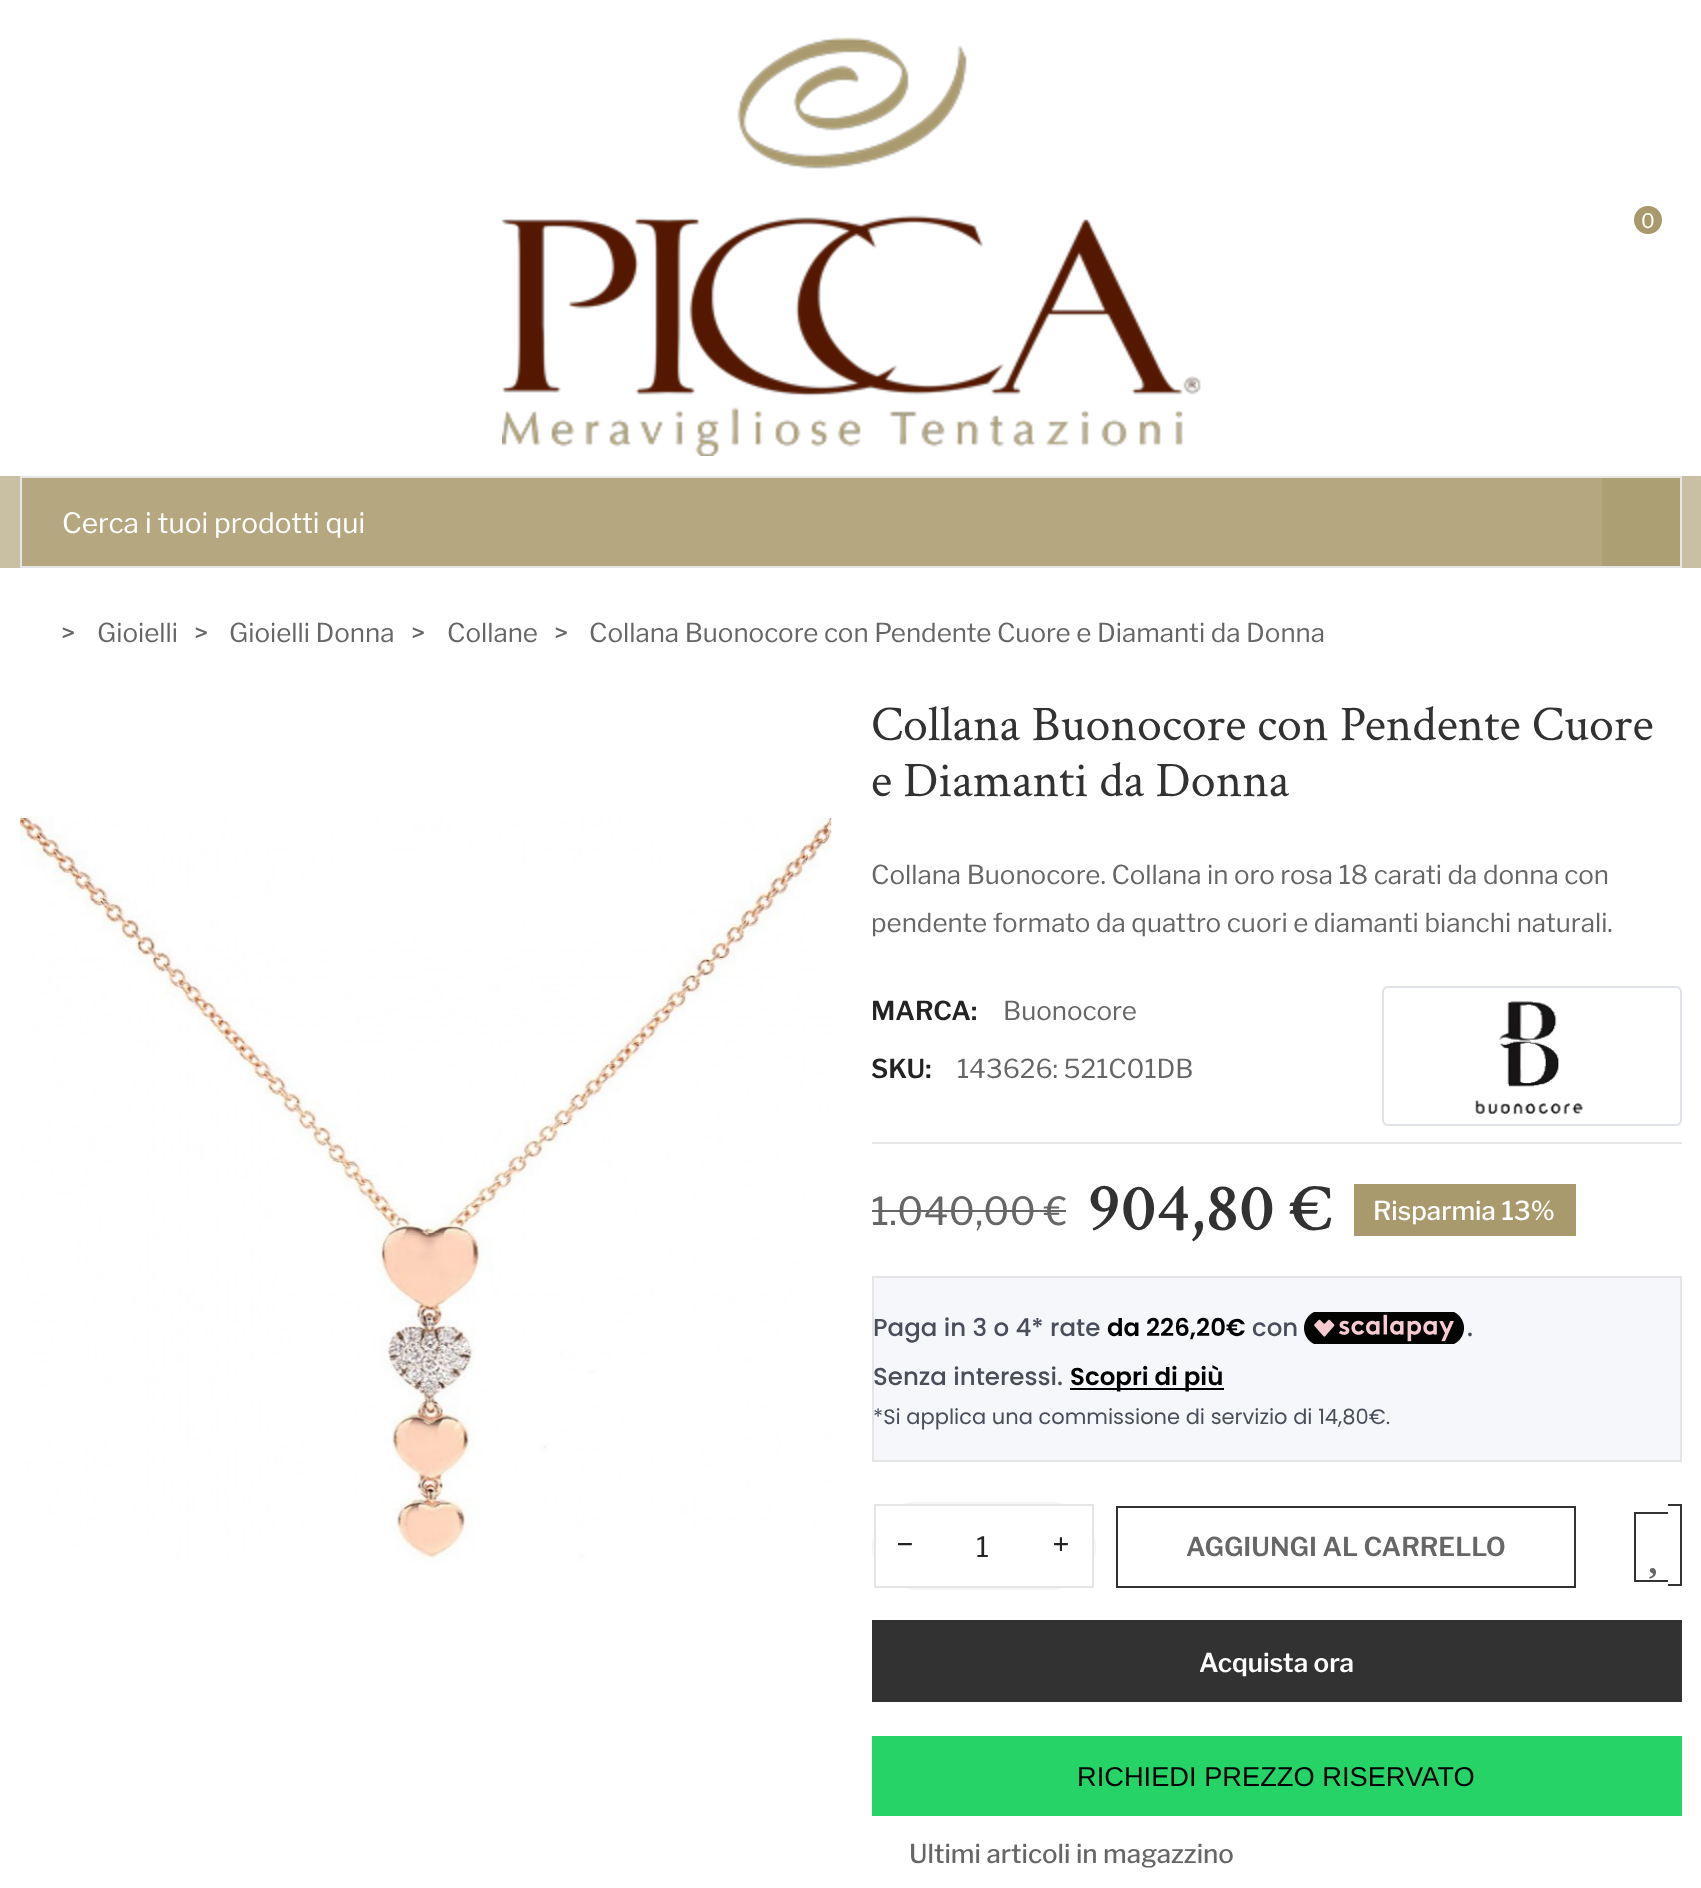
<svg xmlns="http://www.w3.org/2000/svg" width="1701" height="1888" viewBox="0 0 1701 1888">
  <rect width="100%" height="100%" fill="#ffffff"/>
  <image x="502" y="37" width="699" height="419" href="img1.png"/>
  <circle cx="1648" cy="220" r="14" fill="#a99a6d"/>
  <text x="1641" y="228" font-family="Libre Franklin" font-size="20" font-weight="100" fill="#ffffff">0</text>
  <rect x="0" y="476" width="1701" height="92" fill="#c9c0a3"/>
  <rect x="22" y="478" width="1580" height="88" fill="#b5a881"/>
  <rect x="21" y="477" width="1660" height="90" fill="none" stroke="#e5e5e5" stroke-width="2"/>
  <text x="62" y="533" font-family="Libre Franklin" font-size="28" font-weight="100" fill="#ffffff">Cerca i tuoi prodotti qui</text>
  <rect x="1602" y="478" width="78" height="88" fill="#ad9f74"/>
  <text x="61" y="642" font-family="Libre Franklin" font-size="26" font-weight="100" fill="#666666">&gt;</text>
  <text x="97" y="642" font-family="Libre Franklin" font-size="26" font-weight="100" fill="#666666">Gioielli</text>
  <text x="194" y="642" font-family="Libre Franklin" font-size="26" font-weight="100" fill="#666666">&gt;</text>
  <text x="229" y="642" font-family="Libre Franklin" font-size="26" font-weight="100" fill="#666666">Gioielli Donna</text>
  <text x="411" y="642" font-family="Libre Franklin" font-size="26" font-weight="100" fill="#666666">&gt;</text>
  <text x="447" y="642" font-family="Libre Franklin" font-size="26" font-weight="100" fill="#666666">Collane</text>
  <text x="554" y="642" font-family="Libre Franklin" font-size="26" font-weight="100" fill="#666666">&gt;</text>
  <text x="589" y="642" font-family="Libre Franklin" font-size="26" font-weight="100" fill="#666666">Collana Buonocore con Pendente Cuore e Diamanti da Donna</text>
  <image x="20" y="816" width="812" height="747" href="img2.png"/>
  <text x="871" y="740" font-family="Crimson Text" font-size="50" fill="#323232">Collana Buonocore con Pendente Cuore</text>
  <text x="871" y="796" font-family="Crimson Text" font-size="50" fill="#323232">e Diamanti da Donna</text>
  <text x="871" y="884" font-family="Libre Franklin" font-size="26" font-weight="100" fill="#666666">Collana Buonocore. Collana in oro rosa 18 carati da donna con</text>
  <text x="871" y="932" font-family="Libre Franklin" font-size="26" font-weight="100" fill="#666666">pendente formato da quattro cuori e diamanti bianchi naturali.</text>
  <rect x="872" y="1142" width="810" height="2" fill="#e5e5e5"/>
  <text x="871" y="1020" font-family="Libre Franklin" font-size="26" font-weight="600" fill="#232323">MARCA:</text>
  <text x="1003" y="1020" font-family="Libre Franklin" font-size="26" font-weight="100" fill="#666666">Buonocore</text>
  <rect x="1383" y="987" width="298" height="138" rx="5" fill="none" stroke="#dee2e6" stroke-width="2"/>
  <image x="1475" y="1000" width="108" height="115" href="img3.png"/>
  <text x="871" y="1078" font-family="Libre Franklin" font-size="26" font-weight="600" fill="#232323">SKU:</text>
  <text x="957" y="1078" font-family="Libre Franklin" font-size="26" font-weight="100" fill="#666666">143626: 521C01DB</text>
  <text x="871" y="1225" font-family="Libre Franklin" font-size="38.5" font-weight="100" fill="#666666">1.040,00 €</text>
  <rect x="872" y="1210" width="194" height="2" fill="#666666"/>
  <text x="1087" y="1230" font-family="Crimson Text" font-size="70" font-weight="600" fill="#323232">904,80 €</text>
  <rect x="1354" y="1184" width="222" height="52" fill="#a99a6d"/>
  <text x="1373" y="1220" font-family="Libre Franklin" font-size="26" font-weight="500" fill="#ffffff">Risparmia 13%</text>
  <rect x="873" y="1277" width="808" height="184" fill="#f6f7fb" stroke="#e5e5e5" stroke-width="2"/>
  <text x="873" y="1336" font-family="Poppins" font-size="24.5" font-weight="500" fill="#4a4d5a">Paga in 3 o 4* rate</text>
  <text x="1107" y="1336" font-family="Poppins" font-size="24.5" font-weight="600" fill="#000000">da 226,20€</text>
  <text x="1252" y="1336" font-family="Poppins" font-size="24.5" font-weight="500" fill="#4a4d5a">con</text>
  <image x="1304" y="1312" width="160" height="32" href="img4.png"/>
  <text x="1467" y="1336" font-family="Poppins" font-size="24.5" font-weight="500" fill="#4a4d5a">.</text>
  <text x="873" y="1385" font-family="Poppins" font-size="24.5" font-weight="500" fill="#4a4d5a">Senza interessi.</text>
  <rect x="1070" y="1388" width="154" height="2" fill="#000000"/>
  <text x="1070" y="1385" font-family="Poppins" font-size="24.5" font-weight="600" fill="#000000">Scopri di più</text>
  <text x="873" y="1424" font-family="Poppins" font-size="21" fill="#4a4d5a">*Si applica una commissione di servizio di 14,80€.</text>
  <rect x="873" y="1503" width="222" height="86" rx="43" fill="none" stroke="#f5f5f5" stroke-width="2"/>
  <rect x="875" y="1505" width="218" height="82" fill="none" stroke="#e5e5e5" stroke-width="2"/>
  <rect x="876" y="1506" width="27" height="80" fill="#ffffff"/>
  <text x="896" y="1556" font-family="Libre Franklin" font-size="32" font-weight="100" fill="#232323">−</text>
  <text x="976" y="1557" font-family="Libre Franklin" font-size="28" font-weight="100" fill="#232323">1</text>
  <rect x="1066" y="1506" width="26" height="80" fill="#ffffff"/>
  <text x="1052" y="1556" font-family="Libre Franklin" font-size="32" font-weight="100" fill="#232323">+</text>
  <rect x="1117" y="1507" width="458" height="80" fill="none" stroke="#323232" stroke-width="2"/>
  <text x="1186" y="1556" font-family="Libre Franklin" font-size="26" font-weight="600" fill="#666666">AGGIUNGI AL CARRELLO</text>
  <rect x="1634" y="1512" width="34" height="2" fill="#323232"/>
  <rect x="1634" y="1580" width="34" height="2" fill="#323232"/>
  <rect x="1634" y="1512" width="2" height="70" fill="#323232"/>
  <rect x="1668" y="1504" width="14" height="2" fill="#323232"/>
  <rect x="1680" y="1504" width="2" height="82" fill="#323232"/>
  <rect x="1668" y="1584" width="14" height="2" fill="#323232"/>
  <image x="1649" y="1568" width="7" height="11" href="img5.png"/>
  <rect x="872" y="1620" width="810" height="82" fill="#323232"/>
  <text x="1199" y="1672" font-family="Libre Franklin" font-size="26" font-weight="600" fill="#ffffff">Acquista ora</text>
  <rect x="872" y="1736" width="810" height="80" fill="#25d366"/>
  <text x="1077" y="1786" font-family="Liberation Sans" font-size="27.25" fill="#000000">RICHIEDI PREZZO RISERVATO</text>
  <text x="909" y="1863" font-family="Libre Franklin" font-size="26" font-weight="500" fill="#666666">Ultimi articoli in magazzino</text>
</svg>
